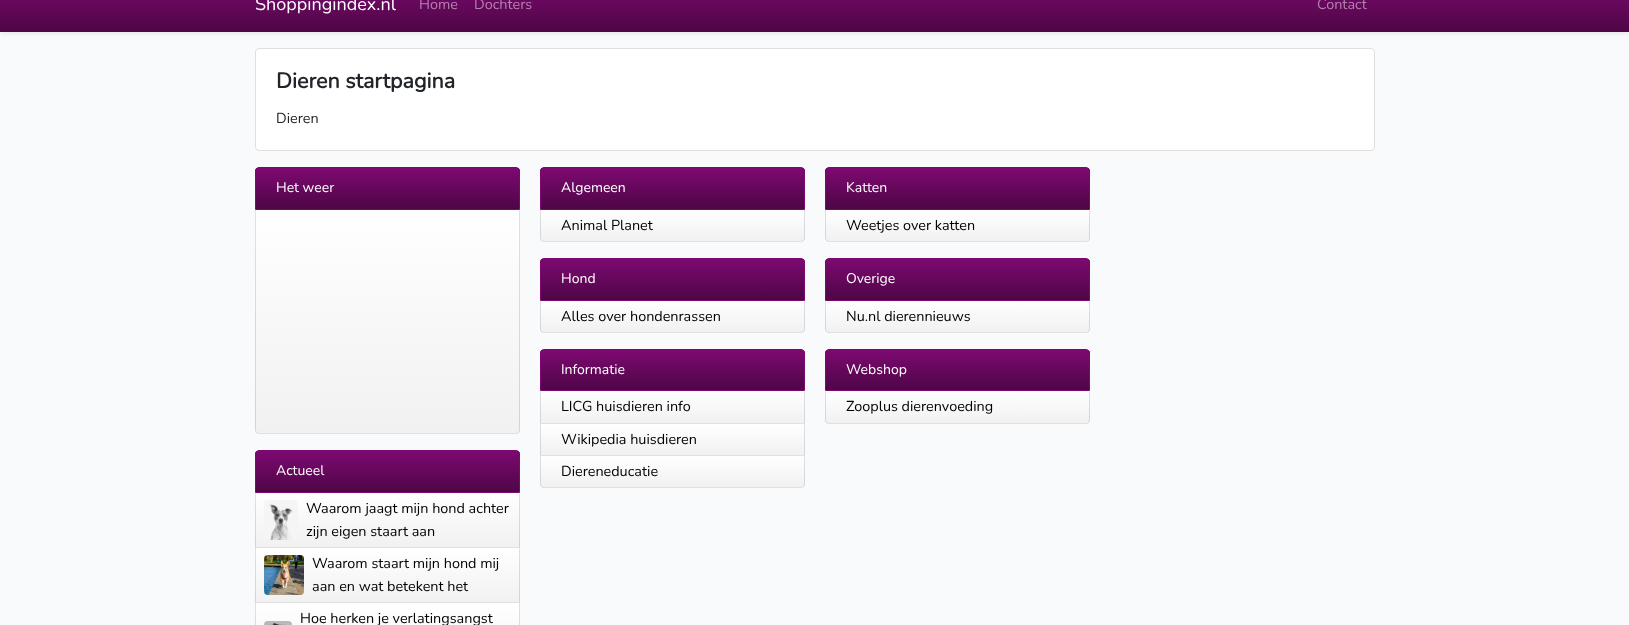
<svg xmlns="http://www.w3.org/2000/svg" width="1629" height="625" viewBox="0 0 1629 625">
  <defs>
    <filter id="blur1" x="-50%" y="-200%" width="200%" height="500%"><feGaussianBlur stdDeviation="2"/></filter>
    <linearGradient id="g1" gradientUnits="userSpaceOnUse" x1="815" y1="-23" x2="815" y2="32"><stop offset="0" stop-color="#7d0971"/><stop offset="1" stop-color="#4e0646"/></linearGradient>
    <clipPath id="clip1"><path d="M259 167H516C518 167 520 169 520 171V210H255V171C255 169 257 167 259 167Z"/></clipPath>
    <linearGradient id="g2" gradientUnits="userSpaceOnUse" x1="388" y1="168" x2="388" y2="209"><stop offset="0" stop-color="#7d0971"/><stop offset="1" stop-color="#4e0646"/></linearGradient>
    <clipPath id="clip2"><path d="M255 210H520V430C520 432 518 434 516 434H259C257 434 255 432 255 430Z"/></clipPath>
    <linearGradient id="g3" gradientUnits="userSpaceOnUse" x1="388" y1="210" x2="388" y2="433"><stop offset="0" stop-color="#ffffff"/><stop offset="1" stop-color="#f1f1f1"/></linearGradient>
    <linearGradient id="g4" gradientUnits="userSpaceOnUse" x1="388" y1="433" x2="388" y2="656"><stop offset="0" stop-color="#ffffff"/><stop offset="1" stop-color="#f1f1f1"/></linearGradient>
    <clipPath id="clip3"><path d="M259 450H516C518 450 520 452 520 454V493H255V454C255 452 257 450 259 450Z"/></clipPath>
    <linearGradient id="g5" gradientUnits="userSpaceOnUse" x1="388" y1="451" x2="388" y2="492"><stop offset="0" stop-color="#7d0971"/><stop offset="1" stop-color="#4e0646"/></linearGradient>
    <linearGradient id="g6" gradientUnits="userSpaceOnUse" x1="388" y1="493" x2="388" y2="547"><stop offset="0" stop-color="#ffffff"/><stop offset="1" stop-color="#f1f1f1"/></linearGradient>
    <linearGradient id="g7" gradientUnits="userSpaceOnUse" x1="388" y1="547" x2="388" y2="601"><stop offset="0" stop-color="#ffffff"/><stop offset="1" stop-color="#f1f1f1"/></linearGradient>
    <linearGradient id="g8" gradientUnits="userSpaceOnUse" x1="388" y1="548" x2="388" y2="602"><stop offset="0" stop-color="#ffffff"/><stop offset="1" stop-color="#f1f1f1"/></linearGradient>
    <linearGradient id="g9" gradientUnits="userSpaceOnUse" x1="388" y1="602" x2="388" y2="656"><stop offset="0" stop-color="#ffffff"/><stop offset="1" stop-color="#f1f1f1"/></linearGradient>
    <linearGradient id="g10" gradientUnits="userSpaceOnUse" x1="388" y1="603" x2="388" y2="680"><stop offset="0" stop-color="#ffffff"/><stop offset="1" stop-color="#f1f1f1"/></linearGradient>
    <clipPath id="clip4"><path d="M544 167H801C803 167 805 169 805 171V210H540V171C540 169 542 167 544 167Z"/></clipPath>
    <linearGradient id="g11" gradientUnits="userSpaceOnUse" x1="673" y1="168" x2="673" y2="209"><stop offset="0" stop-color="#7d0971"/><stop offset="1" stop-color="#4e0646"/></linearGradient>
    <clipPath id="clip5"><path d="M540 210H805V238C805 240 803 242 801 242H544C542 242 540 240 540 238Z"/></clipPath>
    <linearGradient id="g12" gradientUnits="userSpaceOnUse" x1="673" y1="210" x2="673" y2="241"><stop offset="0" stop-color="#ffffff"/><stop offset="1" stop-color="#f1f1f1"/></linearGradient>
    <linearGradient id="g13" gradientUnits="userSpaceOnUse" x1="673" y1="241" x2="673" y2="272"><stop offset="0" stop-color="#ffffff"/><stop offset="1" stop-color="#f1f1f1"/></linearGradient>
    <clipPath id="clip6"><path d="M544 258H801C803 258 805 260 805 262V301H540V262C540 260 542 258 544 258Z"/></clipPath>
    <linearGradient id="g14" gradientUnits="userSpaceOnUse" x1="673" y1="259" x2="673" y2="300"><stop offset="0" stop-color="#7d0971"/><stop offset="1" stop-color="#4e0646"/></linearGradient>
    <clipPath id="clip7"><path d="M540 301H805V329C805 331 803 333 801 333H544C542 333 540 331 540 329Z"/></clipPath>
    <linearGradient id="g15" gradientUnits="userSpaceOnUse" x1="673" y1="301" x2="673" y2="332"><stop offset="0" stop-color="#ffffff"/><stop offset="1" stop-color="#f1f1f1"/></linearGradient>
    <linearGradient id="g16" gradientUnits="userSpaceOnUse" x1="673" y1="332" x2="673" y2="363"><stop offset="0" stop-color="#ffffff"/><stop offset="1" stop-color="#f1f1f1"/></linearGradient>
    <clipPath id="clip8"><path d="M544 349H801C803 349 805 351 805 353V391H540V353C540 351 542 349 544 349Z"/></clipPath>
    <linearGradient id="g17" gradientUnits="userSpaceOnUse" x1="673" y1="350" x2="673" y2="390"><stop offset="0" stop-color="#7d0971"/><stop offset="1" stop-color="#4e0646"/></linearGradient>
    <linearGradient id="g18" gradientUnits="userSpaceOnUse" x1="673" y1="391" x2="673" y2="423"><stop offset="0" stop-color="#ffffff"/><stop offset="1" stop-color="#f1f1f1"/></linearGradient>
    <linearGradient id="g19" gradientUnits="userSpaceOnUse" x1="673" y1="423" x2="673" y2="455"><stop offset="0" stop-color="#ffffff"/><stop offset="1" stop-color="#f1f1f1"/></linearGradient>
    <linearGradient id="g20" gradientUnits="userSpaceOnUse" x1="673" y1="424" x2="673" y2="455"><stop offset="0" stop-color="#ffffff"/><stop offset="1" stop-color="#f1f1f1"/></linearGradient>
    <linearGradient id="g21" gradientUnits="userSpaceOnUse" x1="673" y1="455" x2="673" y2="486"><stop offset="0" stop-color="#ffffff"/><stop offset="1" stop-color="#f1f1f1"/></linearGradient>
    <clipPath id="clip9"><path d="M540 456H805V484C805 486 803 488 801 488H544C542 488 540 486 540 484Z"/></clipPath>
    <linearGradient id="g22" gradientUnits="userSpaceOnUse" x1="673" y1="456" x2="673" y2="487"><stop offset="0" stop-color="#ffffff"/><stop offset="1" stop-color="#f1f1f1"/></linearGradient>
    <linearGradient id="g23" gradientUnits="userSpaceOnUse" x1="673" y1="487" x2="673" y2="518"><stop offset="0" stop-color="#ffffff"/><stop offset="1" stop-color="#f1f1f1"/></linearGradient>
    <clipPath id="clip10"><path d="M829 167H1086C1088 167 1090 169 1090 171V210H825V171C825 169 827 167 829 167Z"/></clipPath>
    <linearGradient id="g24" gradientUnits="userSpaceOnUse" x1="958" y1="168" x2="958" y2="209"><stop offset="0" stop-color="#7d0971"/><stop offset="1" stop-color="#4e0646"/></linearGradient>
    <clipPath id="clip11"><path d="M825 210H1090V238C1090 240 1088 242 1086 242H829C827 242 825 240 825 238Z"/></clipPath>
    <linearGradient id="g25" gradientUnits="userSpaceOnUse" x1="958" y1="210" x2="958" y2="241"><stop offset="0" stop-color="#ffffff"/><stop offset="1" stop-color="#f1f1f1"/></linearGradient>
    <linearGradient id="g26" gradientUnits="userSpaceOnUse" x1="958" y1="241" x2="958" y2="272"><stop offset="0" stop-color="#ffffff"/><stop offset="1" stop-color="#f1f1f1"/></linearGradient>
    <clipPath id="clip12"><path d="M829 258H1086C1088 258 1090 260 1090 262V301H825V262C825 260 827 258 829 258Z"/></clipPath>
    <linearGradient id="g27" gradientUnits="userSpaceOnUse" x1="958" y1="259" x2="958" y2="300"><stop offset="0" stop-color="#7d0971"/><stop offset="1" stop-color="#4e0646"/></linearGradient>
    <clipPath id="clip13"><path d="M825 301H1090V329C1090 331 1088 333 1086 333H829C827 333 825 331 825 329Z"/></clipPath>
    <linearGradient id="g28" gradientUnits="userSpaceOnUse" x1="958" y1="301" x2="958" y2="332"><stop offset="0" stop-color="#ffffff"/><stop offset="1" stop-color="#f1f1f1"/></linearGradient>
    <linearGradient id="g29" gradientUnits="userSpaceOnUse" x1="958" y1="332" x2="958" y2="363"><stop offset="0" stop-color="#ffffff"/><stop offset="1" stop-color="#f1f1f1"/></linearGradient>
    <clipPath id="clip14"><path d="M829 349H1086C1088 349 1090 351 1090 353V391H825V353C825 351 827 349 829 349Z"/></clipPath>
    <linearGradient id="g30" gradientUnits="userSpaceOnUse" x1="958" y1="350" x2="958" y2="390"><stop offset="0" stop-color="#7d0971"/><stop offset="1" stop-color="#4e0646"/></linearGradient>
    <clipPath id="clip15"><path d="M825 391H1090V420C1090 422 1088 424 1086 424H829C827 424 825 422 825 420Z"/></clipPath>
    <linearGradient id="g31" gradientUnits="userSpaceOnUse" x1="958" y1="391" x2="958" y2="423"><stop offset="0" stop-color="#ffffff"/><stop offset="1" stop-color="#f1f1f1"/></linearGradient>
    <linearGradient id="g32" gradientUnits="userSpaceOnUse" x1="958" y1="423" x2="958" y2="455"><stop offset="0" stop-color="#ffffff"/><stop offset="1" stop-color="#f1f1f1"/></linearGradient>
  </defs>
  <rect width="100%" height="100%" fill="#f8fafc"/>
  <rect x="0" y="-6" width="1629" height="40" fill="#000000" fill-opacity="0.07" filter="url(#blur1)"/>
  <rect x="0" y="0" width="1629" height="32" fill="url(#g1)"/>
  <text x="255" y="10" font-family="Nunito" font-size="18" font-weight="200" fill="#ffffff">Shoppingindex.nl</text>
  <text x="419" y="9" font-family="Nunito" font-size="14.4" font-weight="200" fill="#b283ad">Home</text>
  <text x="474" y="9" font-family="Nunito" font-size="14.4" font-weight="200" fill="#b283ad">Dochters</text>
  <text x="1317" y="9" font-family="Nunito" font-size="14.4" font-weight="200" fill="#b283ad">Contact</text>
  <rect x="255.5" y="48.5" width="1119" height="102" rx="3.5" fill="#ffffff" stroke="#dfdfdf"/>
  <text x="276" y="88" font-family="Nunito" font-size="21.5" font-weight="bold" fill="#212529">Dieren startpagina</text>
  <text x="276" y="123" font-family="Nunito" font-size="14.4" font-weight="200" fill="#212529">Dieren</text>
  <g clip-path="url(#clip1)">
    <rect x="255" y="168" width="265" height="41" fill="url(#g2)"/>
  </g>
  <path d="M259 167.5H516C518 167.5 519.5 169 519.5 171V209.5H255.5V171C255.5 169 257 167.5 259 167.5Z" fill="none" stroke="#7c0770"/>
  <text x="276" y="192" font-family="Nunito" font-size="14" font-weight="200" fill="#ffffff">Het weer</text>
  <g clip-path="url(#clip2)">
    <rect x="255" y="210" width="265" height="223" fill="url(#g3)"/>
    <rect x="255" y="433" width="265" height="1" fill="url(#g4)"/>
  </g>
  <path d="M255 210H520V430C520 432 518 434 516 434H259C257 434 255 432 255 430ZM256 210H519V430C519 432 518 433 516 433H259C257 433 256 432 256 430Z" fill="#000000" fill-opacity="0.12" fill-rule="evenodd"/>
  <g clip-path="url(#clip3)">
    <rect x="255" y="451" width="265" height="41" fill="url(#g5)"/>
  </g>
  <path d="M259 450.5H516C518 450.5 519.5 452 519.5 454V492.5H255.5V454C255.5 452 257 450.5 259 450.5Z" fill="none" stroke="#7c0770"/>
  <text x="276" y="475" font-family="Nunito" font-size="14" font-weight="200" fill="#ffffff">Actueel</text>
  <rect x="255" y="493" width="265" height="54" fill="url(#g6)"/>
  <rect x="255" y="547" width="265" height="1" fill="url(#g7)"/>
  <path d="M520 493V548L519 547V493Z" fill="#000000" fill-opacity="0.12"/>
  <path d="M520 548H255L256 547H519Z" fill="#000000" fill-opacity="0.12"/>
  <path d="M255 548V493H256V547Z" fill="#000000" fill-opacity="0.12"/>
  <image x="264" y="500" width="34" height="40" href="img1.png"/>
  <text x="306" y="513" font-family="Nunito" font-size="14.4" font-weight="200" fill="#000000">Waarom jaagt mijn hond achter</text>
  <text x="306" y="536" font-family="Nunito" font-size="14.4" font-weight="200" fill="#000000">zijn eigen staart aan</text>
  <rect x="255" y="548" width="265" height="54" fill="url(#g8)"/>
  <rect x="255" y="602" width="265" height="1" fill="url(#g9)"/>
  <path d="M520 548V603L519 602V548Z" fill="#000000" fill-opacity="0.12"/>
  <path d="M520 603H255L256 602H519Z" fill="#000000" fill-opacity="0.12"/>
  <path d="M255 603V548H256V602Z" fill="#000000" fill-opacity="0.12"/>
  <image x="264" y="555" width="40" height="40" href="img2.png"/>
  <text x="312" y="568" font-family="Nunito" font-size="14.4" font-weight="200" fill="#000000">Waarom staart mijn hond mij</text>
  <text x="312" y="591" font-family="Nunito" font-size="14.4" font-weight="200" fill="#000000">aan en wat betekent het</text>
  <rect x="255" y="603" width="265" height="22" fill="url(#g10)"/>
  <path d="M520 603V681L519 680V603Z" fill="#000000" fill-opacity="0.12"/>
  <path d="M255 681V603H256V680Z" fill="#000000" fill-opacity="0.12"/>
  <image x="264" y="621" width="28" height="4" href="img3.png"/>
  <text x="300" y="623" font-family="Nunito" font-size="14.4" font-weight="200" fill="#000000">Hoe herken je verlatingsangst</text>
  <g clip-path="url(#clip4)">
    <rect x="540" y="168" width="265" height="41" fill="url(#g11)"/>
  </g>
  <path d="M544 167.5H801C803 167.5 804.5 169 804.5 171V209.5H540.5V171C540.5 169 542 167.5 544 167.5Z" fill="none" stroke="#7c0770"/>
  <text x="561" y="192" font-family="Nunito" font-size="14" font-weight="200" fill="#ffffff">Algemeen</text>
  <g clip-path="url(#clip5)">
    <rect x="540" y="210" width="265" height="31" fill="url(#g12)"/>
    <rect x="540" y="241" width="265" height="1" fill="url(#g13)"/>
  </g>
  <path d="M540 210H805V238C805 240 803 242 801 242H544C542 242 540 240 540 238ZM541 210H804V238C804 240 803 241 801 241H544C542 241 541 240 541 238Z" fill="#000000" fill-opacity="0.12" fill-rule="evenodd"/>
  <text x="561" y="230" font-family="Nunito" font-size="14.4" font-weight="200" fill="#000000">Animal Planet</text>
  <g clip-path="url(#clip6)">
    <rect x="540" y="259" width="265" height="41" fill="url(#g14)"/>
  </g>
  <path d="M544 258.5H801C803 258.5 804.5 260 804.5 262V300.5H540.5V262C540.5 260 542 258.5 544 258.5Z" fill="none" stroke="#7c0770"/>
  <text x="561" y="283" font-family="Nunito" font-size="14" font-weight="200" fill="#ffffff">Hond</text>
  <g clip-path="url(#clip7)">
    <rect x="540" y="301" width="265" height="31" fill="url(#g15)"/>
    <rect x="540" y="332" width="265" height="1" fill="url(#g16)"/>
  </g>
  <path d="M540 301H805V329C805 331 803 333 801 333H544C542 333 540 331 540 329ZM541 301H804V329C804 331 803 332 801 332H544C542 332 541 331 541 329Z" fill="#000000" fill-opacity="0.12" fill-rule="evenodd"/>
  <text x="561" y="321" font-family="Nunito" font-size="14.4" font-weight="200" fill="#000000">Alles over hondenrassen</text>
  <g clip-path="url(#clip8)">
    <rect x="540" y="350" width="265" height="40" fill="url(#g17)"/>
  </g>
  <path d="M544 349.5H801C803 349.5 804.5 351 804.5 353V390.5H540.5V353C540.5 351 542 349.5 544 349.5Z" fill="none" stroke="#7c0770"/>
  <text x="561" y="374" font-family="Nunito" font-size="14" font-weight="200" fill="#ffffff">Informatie</text>
  <rect x="540" y="391" width="265" height="32" fill="url(#g18)"/>
  <rect x="540" y="423" width="265" height="1" fill="url(#g19)"/>
  <path d="M805 391V424L804 423V391Z" fill="#000000" fill-opacity="0.12"/>
  <path d="M805 424H540L541 423H804Z" fill="#000000" fill-opacity="0.12"/>
  <path d="M540 424V391H541V423Z" fill="#000000" fill-opacity="0.12"/>
  <text x="561" y="411" font-family="Nunito" font-size="14.4" font-weight="200" fill="#000000">LICG huisdieren info</text>
  <rect x="540" y="424" width="265" height="31" fill="url(#g20)"/>
  <rect x="540" y="455" width="265" height="1" fill="url(#g21)"/>
  <path d="M805 424V456L804 455V424Z" fill="#000000" fill-opacity="0.12"/>
  <path d="M805 456H540L541 455H804Z" fill="#000000" fill-opacity="0.12"/>
  <path d="M540 456V424H541V455Z" fill="#000000" fill-opacity="0.12"/>
  <text x="561" y="444" font-family="Nunito" font-size="14.4" font-weight="200" fill="#000000">Wikipedia huisdieren</text>
  <g clip-path="url(#clip9)">
    <rect x="540" y="456" width="265" height="31" fill="url(#g22)"/>
    <rect x="540" y="487" width="265" height="1" fill="url(#g23)"/>
  </g>
  <path d="M540 456H805V484C805 486 803 488 801 488H544C542 488 540 486 540 484ZM541 456H804V484C804 486 803 487 801 487H544C542 487 541 486 541 484Z" fill="#000000" fill-opacity="0.12" fill-rule="evenodd"/>
  <text x="561" y="476" font-family="Nunito" font-size="14.4" font-weight="200" fill="#000000">Diereneducatie</text>
  <g clip-path="url(#clip10)">
    <rect x="825" y="168" width="265" height="41" fill="url(#g24)"/>
  </g>
  <path d="M829 167.5H1086C1088 167.5 1089.5 169 1089.5 171V209.5H825.5V171C825.5 169 827 167.5 829 167.5Z" fill="none" stroke="#7c0770"/>
  <text x="846" y="192" font-family="Nunito" font-size="14" font-weight="200" fill="#ffffff">Katten</text>
  <g clip-path="url(#clip11)">
    <rect x="825" y="210" width="265" height="31" fill="url(#g25)"/>
    <rect x="825" y="241" width="265" height="1" fill="url(#g26)"/>
  </g>
  <path d="M825 210H1090V238C1090 240 1088 242 1086 242H829C827 242 825 240 825 238ZM826 210H1089V238C1089 240 1088 241 1086 241H829C827 241 826 240 826 238Z" fill="#000000" fill-opacity="0.12" fill-rule="evenodd"/>
  <text x="846" y="230" font-family="Nunito" font-size="14.4" font-weight="200" fill="#000000">Weetjes over katten</text>
  <g clip-path="url(#clip12)">
    <rect x="825" y="259" width="265" height="41" fill="url(#g27)"/>
  </g>
  <path d="M829 258.5H1086C1088 258.5 1089.5 260 1089.5 262V300.5H825.5V262C825.5 260 827 258.5 829 258.5Z" fill="none" stroke="#7c0770"/>
  <text x="846" y="283" font-family="Nunito" font-size="14" font-weight="200" fill="#ffffff">Overige</text>
  <g clip-path="url(#clip13)">
    <rect x="825" y="301" width="265" height="31" fill="url(#g28)"/>
    <rect x="825" y="332" width="265" height="1" fill="url(#g29)"/>
  </g>
  <path d="M825 301H1090V329C1090 331 1088 333 1086 333H829C827 333 825 331 825 329ZM826 301H1089V329C1089 331 1088 332 1086 332H829C827 332 826 331 826 329Z" fill="#000000" fill-opacity="0.12" fill-rule="evenodd"/>
  <text x="846" y="321" font-family="Nunito" font-size="14.4" font-weight="200" fill="#000000">Nu.nl dierennieuws</text>
  <g clip-path="url(#clip14)">
    <rect x="825" y="350" width="265" height="40" fill="url(#g30)"/>
  </g>
  <path d="M829 349.5H1086C1088 349.5 1089.5 351 1089.5 353V390.5H825.5V353C825.5 351 827 349.5 829 349.5Z" fill="none" stroke="#7c0770"/>
  <text x="846" y="374" font-family="Nunito" font-size="14" font-weight="200" fill="#ffffff">Webshop</text>
  <g clip-path="url(#clip15)">
    <rect x="825" y="391" width="265" height="32" fill="url(#g31)"/>
    <rect x="825" y="423" width="265" height="1" fill="url(#g32)"/>
  </g>
  <path d="M825 391H1090V420C1090 422 1088 424 1086 424H829C827 424 825 422 825 420ZM826 391H1089V420C1089 422 1088 423 1086 423H829C827 423 826 422 826 420Z" fill="#000000" fill-opacity="0.12" fill-rule="evenodd"/>
  <text x="846" y="411" font-family="Nunito" font-size="14.4" font-weight="200" fill="#000000">Zooplus dierenvoeding</text>
</svg>
